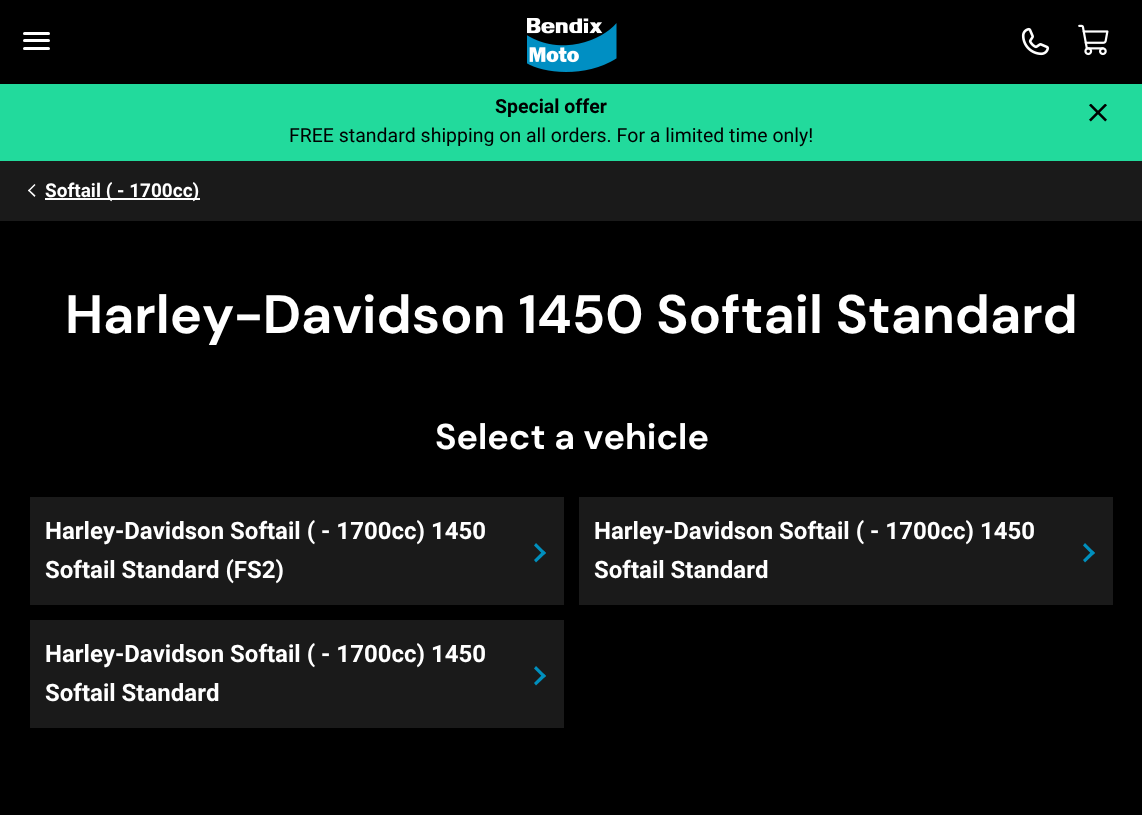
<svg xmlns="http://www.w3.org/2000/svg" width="1142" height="815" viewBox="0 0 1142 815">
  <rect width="100%" height="100%" fill="#000000"/>
  <rect x="23" y="32" width="27" height="3" rx="1.5" fill="#ffffff"/>
  <rect x="23" y="39" width="27" height="3" rx="1.5" fill="#ffffff"/>
  <rect x="23" y="47" width="27" height="3" rx="1.5" fill="#ffffff"/>
  <image x="527" y="18" width="90" height="54" href="img1.png"/>
  <image x="1021" y="27" width="29" height="29" href="img2.png"/>
  <image x="1078" y="24" width="31" height="32" href="img3.png"/>
  <rect x="0" y="84" width="1142" height="77" fill="#22da9c"/>
  <text x="495" y="113" font-family="Roboto" font-size="19.5" font-weight="bold" fill="#000000">Special offer</text>
  <text x="289" y="142" font-family="Roboto" font-size="19.5" fill="#000000">FREE standard shipping on all orders. For a limited time only!</text>
  <image x="1089" y="104" width="18" height="18" href="img4.png"/>
  <rect x="0" y="161" width="1142" height="60" fill="#1a1a1a"/>
  <path d="M34.5 197L28 190.5L29 189.5L35.5 195.5Z" fill="#ffffff"/>
  <path d="M29 191.5L28 190.5L34.5 184L35.5 185Z" fill="#ffffff"/>
  <rect x="45" y="198" width="155" height="2" fill="#ffffff"/>
  <text x="45" y="197" font-family="Roboto" font-size="19" font-weight="bold" fill="#ffffff">Softail ( - 1700cc)</text>
  <text x="65" y="333" font-family="DM Sans" font-size="54" font-weight="bold" fill="#ffffff">Harley-Davidson 1450 Softail Standard</text>
  <text x="435" y="449" font-family="DM Sans" font-size="36" font-weight="bold" fill="#ffffff">Select a vehicle</text>
  <rect x="30" y="497" width="534" height="108" fill="#1a1a1a"/>
  <text x="45" y="539" font-family="Roboto" font-size="24" font-weight="bold" fill="#ffffff">Harley-Davidson Softail ( - 1700cc) 1450</text>
  <path d="M536 543L546 553L543.5 555L534 545.5Z" fill="#008fbd"/>
  <path d="M543.5 550.5L546 553L536 562.5L534 560Z" fill="#008fbd"/>
  <text x="45" y="578" font-family="Roboto" font-size="24" font-weight="bold" fill="#ffffff">Softail Standard (FS2)</text>
  <rect x="579" y="497" width="534" height="108" fill="#1a1a1a"/>
  <text x="594" y="539" font-family="Roboto" font-size="24" font-weight="bold" fill="#ffffff">Harley-Davidson Softail ( - 1700cc) 1450</text>
  <path d="M1085 543L1095 553L1092.5 555L1083 545.5Z" fill="#008fbd"/>
  <path d="M1092.5 550.5L1095 553L1085 562.5L1083 560Z" fill="#008fbd"/>
  <text x="594" y="578" font-family="Roboto" font-size="24" font-weight="bold" fill="#ffffff">Softail Standard</text>
  <rect x="30" y="620" width="534" height="108" fill="#1a1a1a"/>
  <text x="45" y="662" font-family="Roboto" font-size="24" font-weight="bold" fill="#ffffff">Harley-Davidson Softail ( - 1700cc) 1450</text>
  <path d="M536 666L546 676L543.5 678L534 668.5Z" fill="#008fbd"/>
  <path d="M543.5 673.5L546 676L536 685.5L534 683Z" fill="#008fbd"/>
  <text x="45" y="701" font-family="Roboto" font-size="24" font-weight="bold" fill="#ffffff">Softail Standard</text>
</svg>
